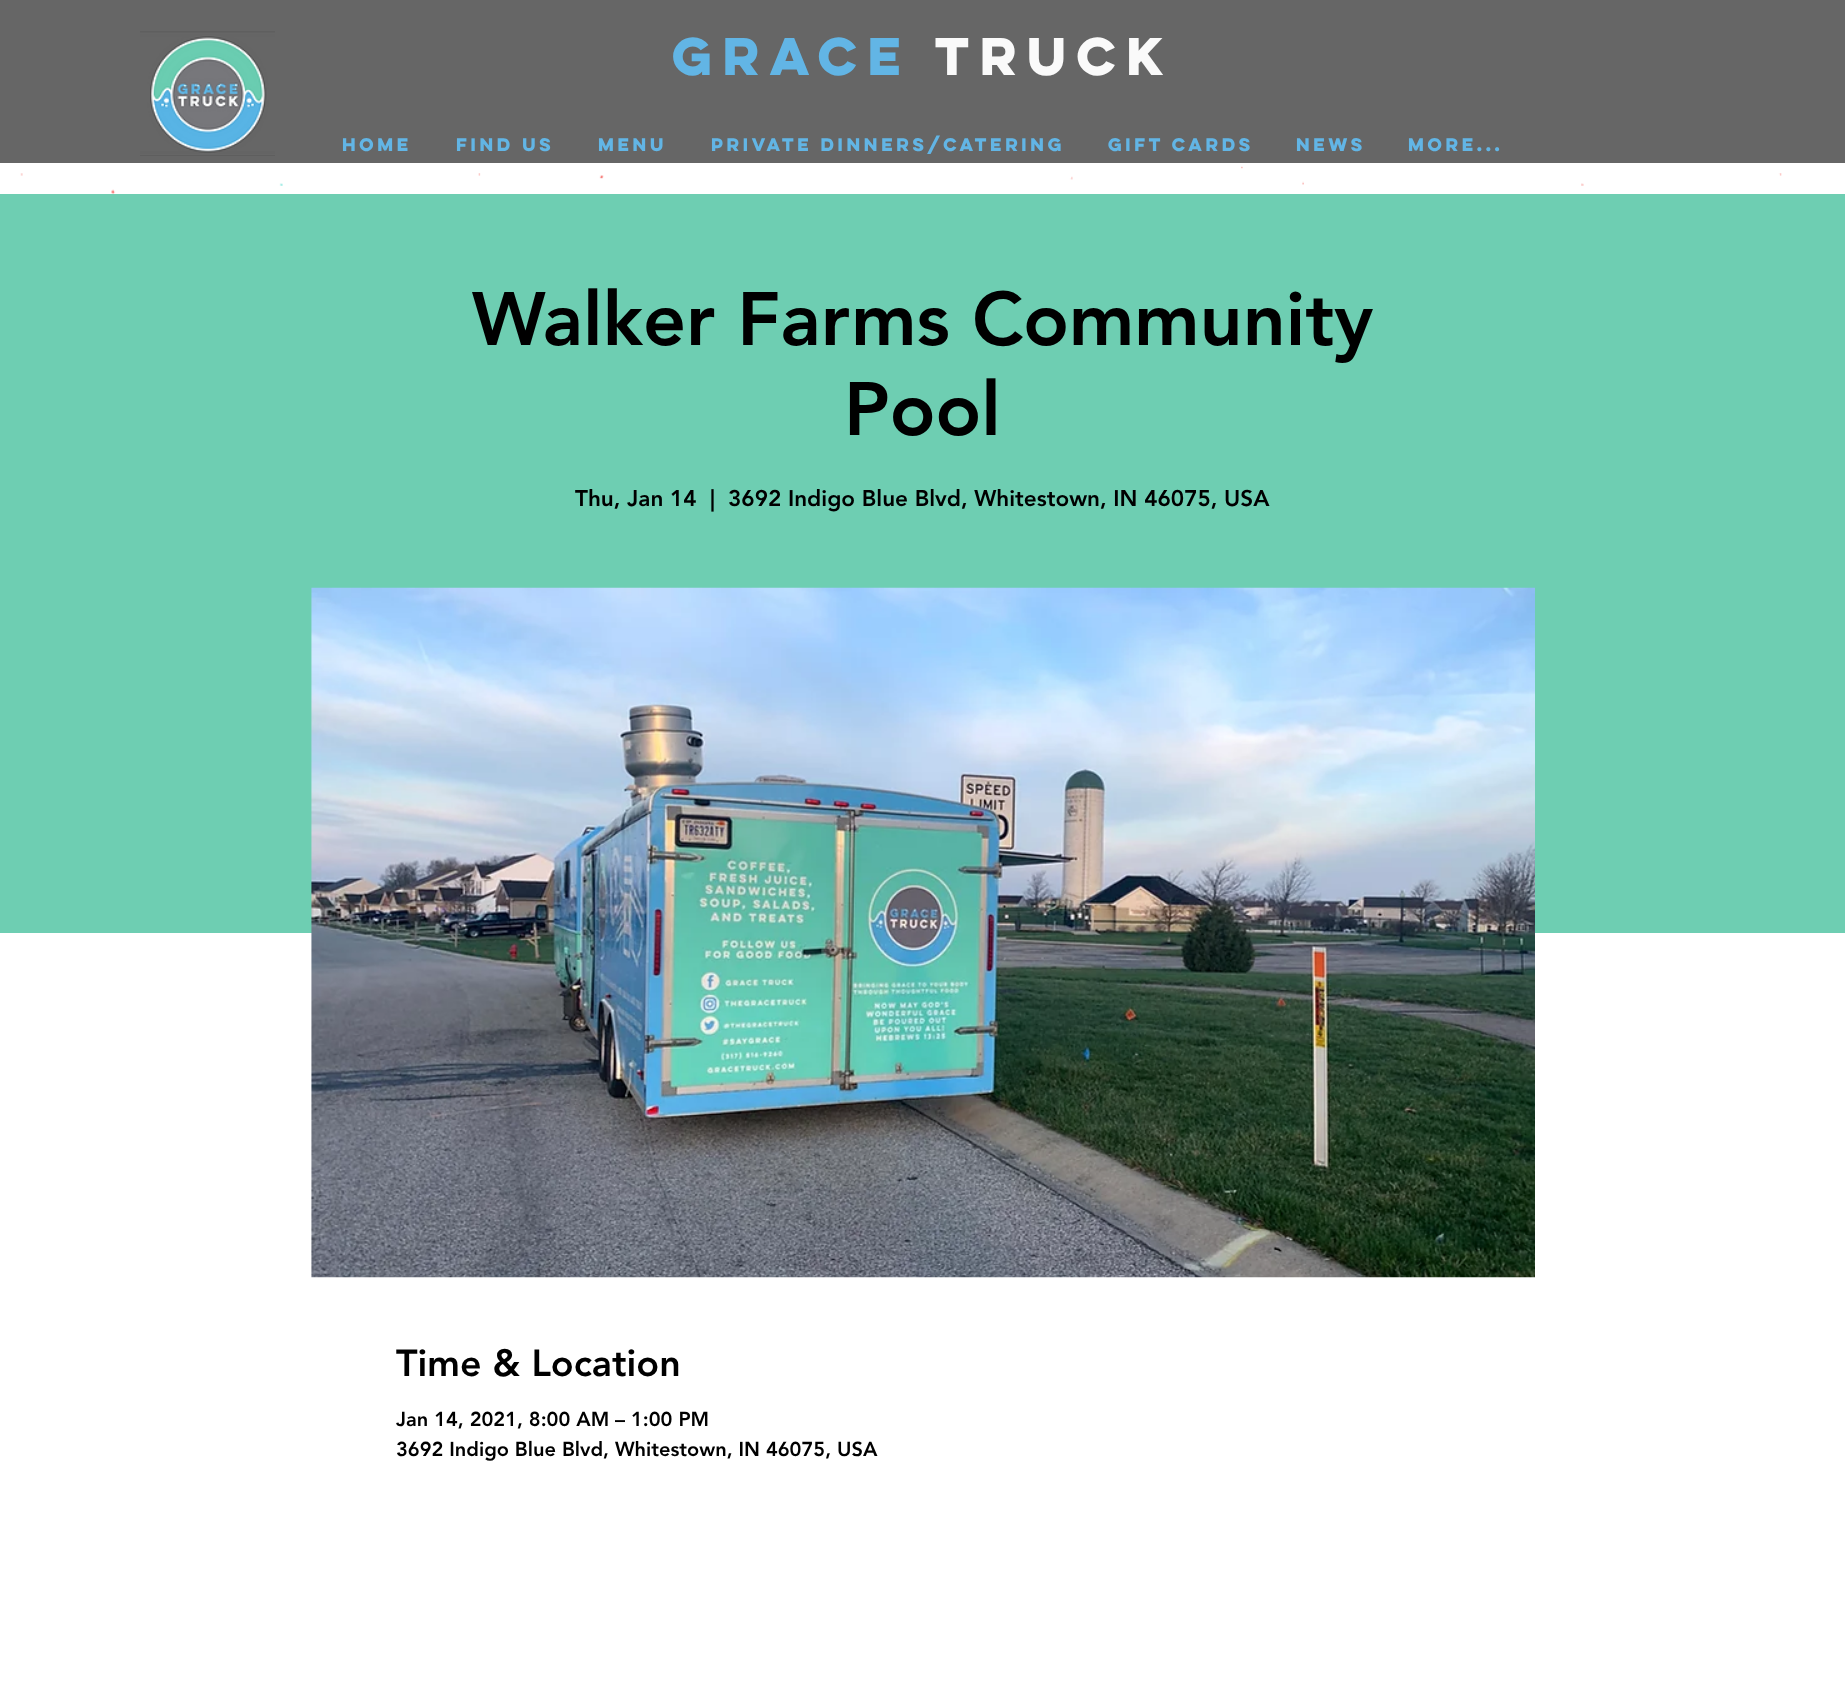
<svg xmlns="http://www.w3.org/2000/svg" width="1845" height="1686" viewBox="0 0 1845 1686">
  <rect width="100%" height="100%" fill="#ffffff"/>
  <rect x="0" y="0" width="1845" height="163" fill="#666666"/>
  <image x="140" y="31" width="135" height="125" href="img1.png"/>
  <text x="672" y="75" font-family="'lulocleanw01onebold'" font-size="47.5" font-weight="bold" fill="#62b5e5">GRACE</text>
  <text x="935" y="75" font-family="'lulocleanw01onebold'" font-size="47.5" font-weight="bold" fill="#fafafa">Truck</text>
  <text x="342" y="151" font-family="'lulocleanw01onebold'" font-size="16.25" font-weight="bold" fill="#62b5e5">HOME</text>
  <text x="456" y="151" font-family="'lulocleanw01onebold'" font-size="16.25" font-weight="bold" fill="#62b5e5">FIND US</text>
  <text x="598" y="151" font-family="'lulocleanw01onebold'" font-size="16.25" font-weight="bold" fill="#62b5e5">MENU</text>
  <text x="711" y="151" font-family="'lulocleanw01onebold'" font-size="16.25" font-weight="bold" fill="#62b5e5">PRIVATE DINNERS/CATERING</text>
  <text x="1108" y="151" font-family="'lulocleanw01onebold'" font-size="16.25" font-weight="bold" fill="#62b5e5">GIFT CARDS</text>
  <text x="1296" y="151" font-family="'lulocleanw01onebold'" font-size="16.25" font-weight="bold" fill="#62b5e5">NEWS</text>
  <text x="1408" y="151" font-family="'lulocleanw01onebold'" font-size="16.25" font-weight="bold" fill="#62b5e5">More...</text>
  <rect x="0" y="194" width="1845" height="739" fill="#6eceb2"/>
  <text x="472" y="345" font-family="'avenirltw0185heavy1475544'" font-size="75" font-weight="900" fill="#000000">Walker Farms Community</text>
  <text x="844" y="435" font-family="'avenirltw0185heavy1475544'" font-size="75" font-weight="900" fill="#000000">Pool</text>
  <text x="575" y="506" font-family="'avenirltw0185heavy1475544'" font-size="22.5" font-weight="900" fill="#000000">Thu, Jan 14</text>
  <text x="710" y="506" font-family="'avenirltw0185heavy1475544'" font-size="22.5" font-weight="900" fill="#000000">|</text>
  <text x="728" y="506" font-family="'avenirltw0185heavy1475544'" font-size="22.5" font-weight="900" fill="#000000">3692 Indigo Blue Blvd, Whitestown, IN 46075, USA</text>
  <image x="311" y="587" width="1224" height="691" href="img2.png"/>
  <text x="396" y="1376" font-family="'avenirltw0185heavy1475544'" font-size="37.5" font-weight="900" fill="#000000">Time &amp; Location</text>
  <text x="396" y="1426" font-family="'avenirltw0185heavy1475544'" font-size="20" font-weight="900" fill="#000000">Jan 14, 2021, 8:00 AM – 1:00 PM</text>
  <text x="396" y="1456" font-family="'avenirltw0185heavy1475544'" font-size="20" font-weight="900" fill="#000000">3692 Indigo Blue Blvd, Whitestown, IN 46075, USA</text>
  <image x="20" y="166" width="1762" height="28" href="img3.png"/>
</svg>
